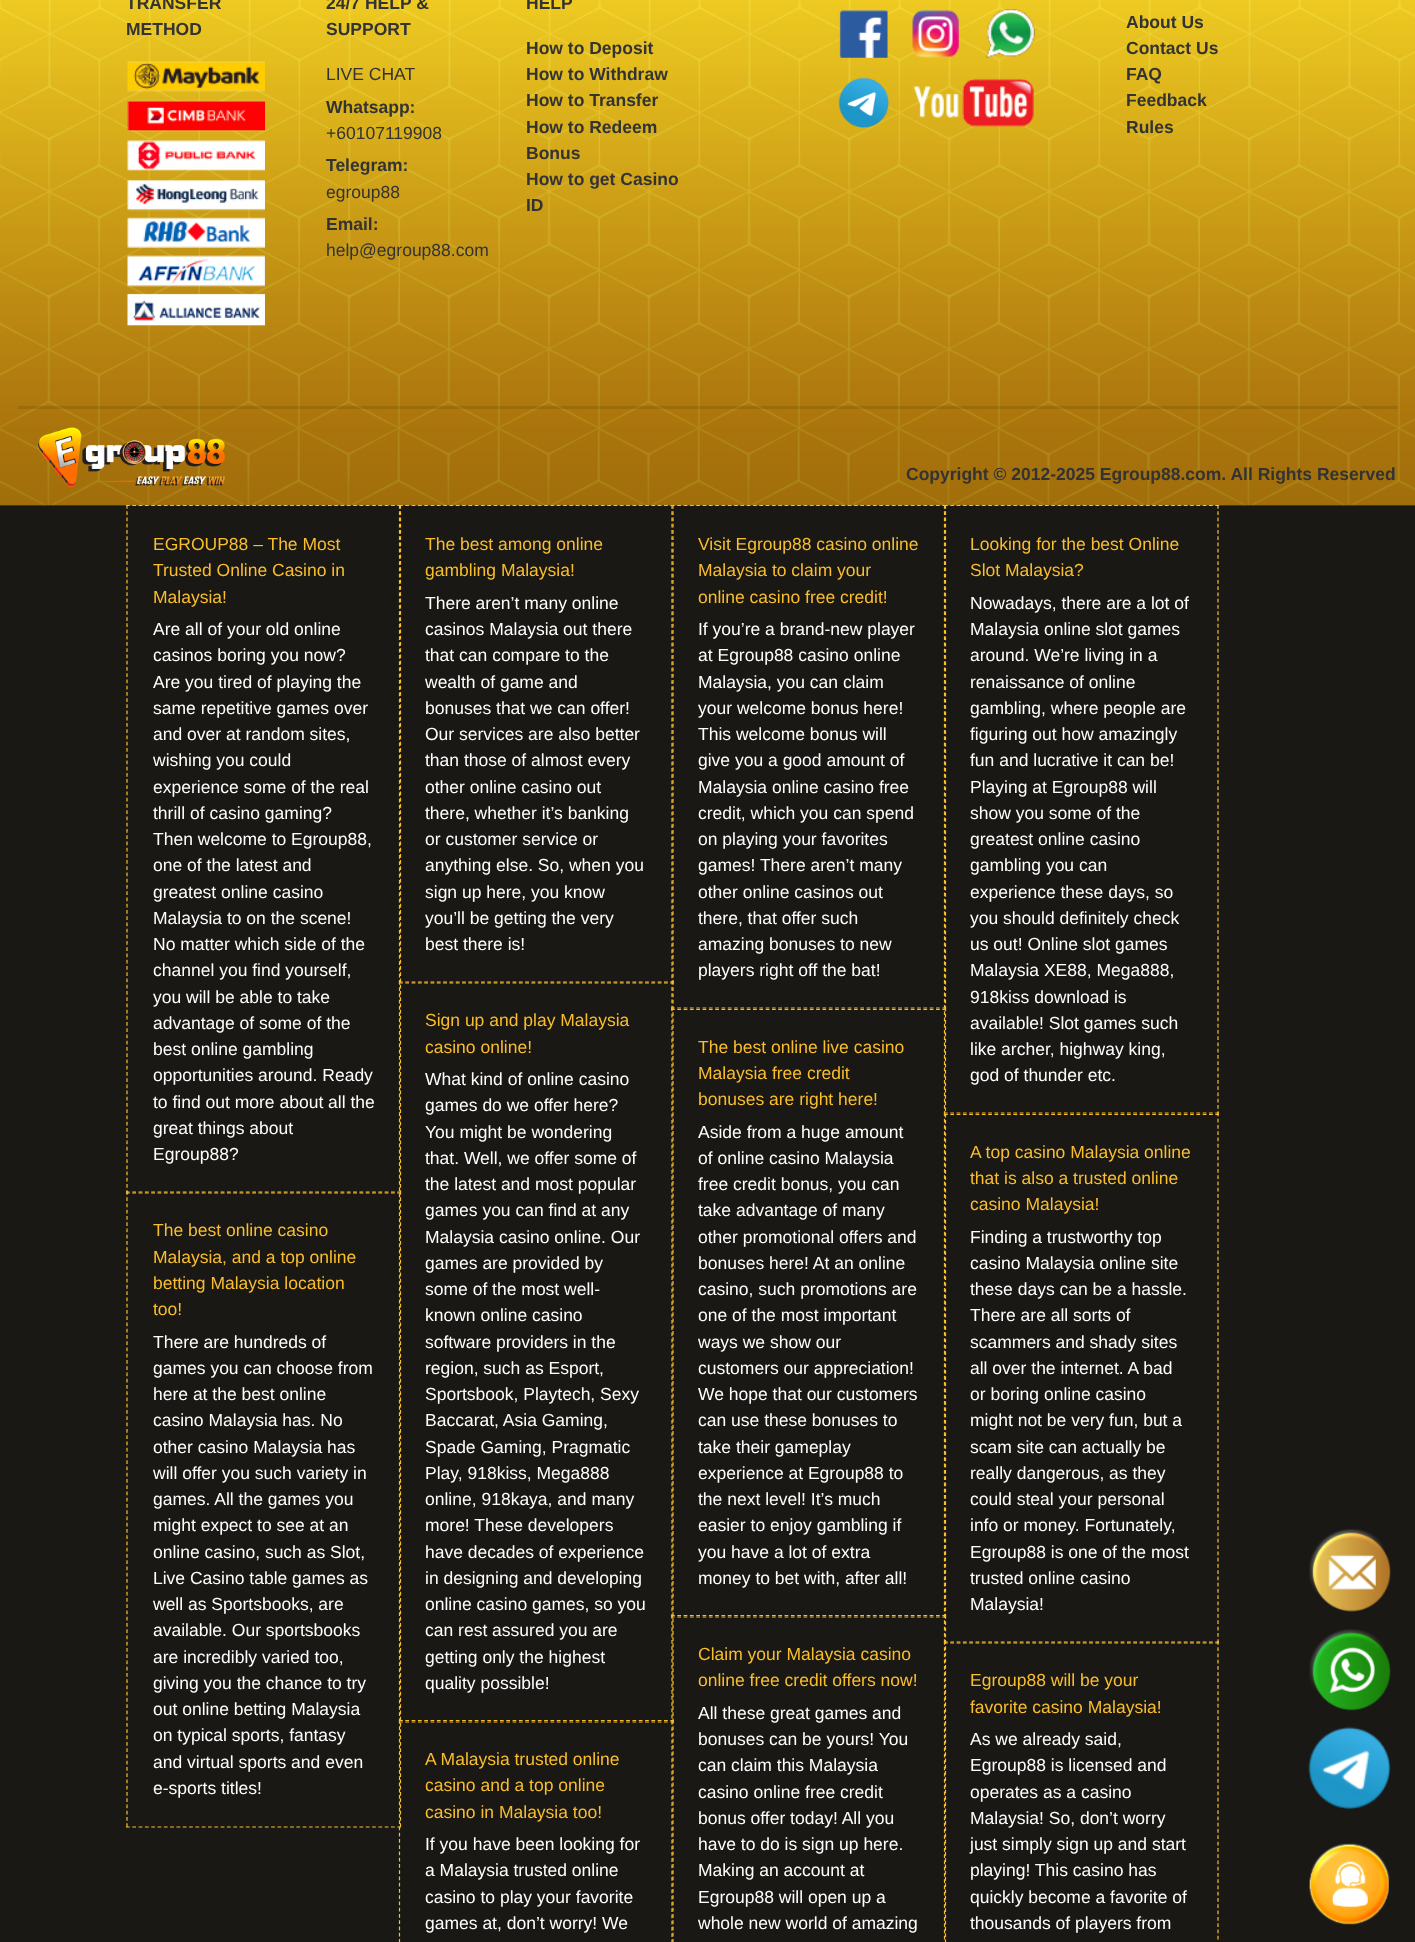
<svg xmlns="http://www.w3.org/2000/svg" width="1415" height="1942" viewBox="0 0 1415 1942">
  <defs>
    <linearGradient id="g1" gradientUnits="userSpaceOnUse" x1="708" y1="-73" x2="708" y2="505"><stop offset="0" stop-color="#000000" stop-opacity="0"/><stop offset="1" stop-color="#000000" stop-opacity="0.3"/></linearGradient>
  </defs>
  <rect width="100%" height="100%" fill="#191815"/>
  <image x="0" y="0" width="1415" height="506" href="img1.png"/>
  <rect x="18" y="406" width="1380" height="3" fill="#000000" fill-opacity="0.1"/>
  <rect x="0" y="0" width="1415" height="505" fill="url(#g1)"/>
  <text x="126" y="9" font-family="Liberation Sans" font-size="17.5" font-weight="bold" fill="#333333">TRANSFER</text>
  <text x="126" y="35" font-family="Liberation Sans" font-size="17.5" font-weight="bold" fill="#333333">METHOD</text>
  <image x="127" y="61" width="138" height="265" href="img2.png"/>
  <text x="326" y="9" font-family="Liberation Sans" font-size="17.5" font-weight="bold" fill="#333333">24/7 HELP &amp;</text>
  <text x="326" y="35" font-family="Liberation Sans" font-size="17.5" font-weight="bold" fill="#333333">SUPPORT</text>
  <text x="326" y="80" font-family="Liberation Sans" font-size="17.5" fill="#333333">LIVE CHAT</text>
  <text x="326" y="113" font-family="Liberation Sans" font-size="17.5" font-weight="bold" fill="#333333">Whatsapp:</text>
  <text x="326" y="139" font-family="Liberation Sans" font-size="17.5" fill="#333333">+60107119908</text>
  <text x="326" y="171" font-family="Liberation Sans" font-size="17.5" font-weight="bold" fill="#333333">Telegram:</text>
  <text x="326" y="198" font-family="Liberation Sans" font-size="17.5" fill="#333333">egroup88</text>
  <text x="326" y="230" font-family="Liberation Sans" font-size="17.5" font-weight="bold" fill="#333333">Email:</text>
  <text x="326" y="256" font-family="Liberation Sans" font-size="17.5" fill="#333333">help@egroup88.com</text>
  <text x="526" y="9" font-family="Liberation Sans" font-size="17.5" font-weight="bold" fill="#333333">HELP</text>
  <text x="526" y="54" font-family="Liberation Sans" font-size="17.5" font-weight="bold" fill="#333333">How to Deposit</text>
  <text x="526" y="80" font-family="Liberation Sans" font-size="17.5" font-weight="bold" fill="#333333">How to Withdraw</text>
  <text x="526" y="106" font-family="Liberation Sans" font-size="17.5" font-weight="bold" fill="#333333">How to Transfer</text>
  <text x="526" y="133" font-family="Liberation Sans" font-size="17.5" font-weight="bold" fill="#333333">How to Redeem</text>
  <text x="526" y="159" font-family="Liberation Sans" font-size="17.5" font-weight="bold" fill="#333333">Bonus</text>
  <text x="526" y="185" font-family="Liberation Sans" font-size="17.5" font-weight="bold" fill="#333333">How to get Casino</text>
  <text x="526" y="211" font-family="Liberation Sans" font-size="17.5" font-weight="bold" fill="#333333">ID</text>
  <image x="839" y="10" width="49" height="48" href="img3.png"/>
  <image x="912" y="10" width="47" height="48" href="img4.png"/>
  <image x="986" y="9" width="49" height="49" href="img5.png"/>
  <image x="838" y="77" width="51" height="51" href="img6.png"/>
  <image x="913" y="78" width="121" height="49" href="img7.png"/>
  <text x="1126" y="28" font-family="Liberation Sans" font-size="17.5" font-weight="bold" fill="#333333">About Us</text>
  <text x="1126" y="54" font-family="Liberation Sans" font-size="17.5" font-weight="bold" fill="#333333">Contact Us</text>
  <text x="1126" y="80" font-family="Liberation Sans" font-size="17.5" font-weight="bold" fill="#333333">FAQ</text>
  <text x="1126" y="106" font-family="Liberation Sans" font-size="17.5" font-weight="bold" fill="#333333">Feedback</text>
  <text x="1126" y="133" font-family="Liberation Sans" font-size="17.5" font-weight="bold" fill="#333333">Rules</text>
  <image x="37" y="427" width="188" height="60" href="img8.png"/>
  <text x="906" y="480" font-family="Liberation Sans" font-size="17.5" font-weight="bold" fill="#333333">Copyright © 2012-2025 Egroup88.com. All Rights Reserved</text>
  <image x="1309" y="1529" width="82" height="83" href="img9.png"/>
  <image x="1309" y="1629" width="82" height="82" href="img10.png"/>
  <image x="1308" y="1726" width="83" height="83" href="img11.png"/>
  <image x="1308" y="1843" width="82" height="82" href="img12.png"/>
  <path d="M126 505.5H401" fill="none" stroke="#fabe2d" stroke-width="1.2" stroke-dasharray="3.75 2.56"/>
  <path d="M400.5 505V1194" fill="none" stroke="#fabe2d" stroke-width="1.2" stroke-dasharray="3.75 2.48"/>
  <path d="M126 1193H401" fill="none" stroke="#fabe2d" stroke-width="1.2" stroke-dasharray="3.75 2.56"/>
  <path d="M127 505V1194" fill="none" stroke="#fabe2d" stroke-width="1.2" stroke-dasharray="3.75 2.48"/>
  <text x="153" y="550" font-family="Liberation Sans" font-size="17.5" fill="#fabe2d">EGROUP88 – The Most</text>
  <text x="153" y="576" font-family="Liberation Sans" font-size="17.5" fill="#fabe2d">Trusted Online Casino in</text>
  <text x="153" y="603" font-family="Liberation Sans" font-size="17.5" fill="#fabe2d">Malaysia!</text>
  <text x="153" y="635" font-family="Liberation Sans" font-size="17.5" fill="#ffffff">Are all of your old online</text>
  <text x="153" y="661" font-family="Liberation Sans" font-size="17.5" fill="#ffffff">casinos boring you now?</text>
  <text x="153" y="688" font-family="Liberation Sans" font-size="17.5" fill="#ffffff">Are you tired of playing the</text>
  <text x="153" y="714" font-family="Liberation Sans" font-size="17.5" fill="#ffffff">same repetitive games over</text>
  <text x="153" y="740" font-family="Liberation Sans" font-size="17.5" fill="#ffffff">and over at random sites,</text>
  <text x="153" y="766" font-family="Liberation Sans" font-size="17.5" fill="#ffffff">wishing you could</text>
  <text x="153" y="793" font-family="Liberation Sans" font-size="17.5" fill="#ffffff">experience some of the real</text>
  <text x="153" y="819" font-family="Liberation Sans" font-size="17.5" fill="#ffffff">thrill of casino gaming?</text>
  <text x="153" y="845" font-family="Liberation Sans" font-size="17.5" fill="#ffffff">Then welcome to Egroup88,</text>
  <text x="153" y="871" font-family="Liberation Sans" font-size="17.5" fill="#ffffff">one of the latest and</text>
  <text x="153" y="898" font-family="Liberation Sans" font-size="17.5" fill="#ffffff">greatest online casino</text>
  <text x="153" y="924" font-family="Liberation Sans" font-size="17.5" fill="#ffffff">Malaysia to on the scene!</text>
  <text x="153" y="950" font-family="Liberation Sans" font-size="17.5" fill="#ffffff">No matter which side of the</text>
  <text x="153" y="976" font-family="Liberation Sans" font-size="17.5" fill="#ffffff">channel you find yourself,</text>
  <text x="153" y="1003" font-family="Liberation Sans" font-size="17.5" fill="#ffffff">you will be able to take</text>
  <text x="153" y="1029" font-family="Liberation Sans" font-size="17.5" fill="#ffffff">advantage of some of the</text>
  <text x="153" y="1055" font-family="Liberation Sans" font-size="17.5" fill="#ffffff">best online gambling</text>
  <text x="153" y="1081" font-family="Liberation Sans" font-size="17.5" fill="#ffffff">opportunities around. Ready</text>
  <text x="153" y="1108" font-family="Liberation Sans" font-size="17.5" fill="#ffffff">to find out more about all the</text>
  <text x="153" y="1134" font-family="Liberation Sans" font-size="17.5" fill="#ffffff">great things about</text>
  <text x="153" y="1160" font-family="Liberation Sans" font-size="17.5" fill="#ffffff">Egroup88?</text>
  <path d="M399 505.5H674" fill="none" stroke="#fabe2d" stroke-width="1.2" stroke-dasharray="3.75 2.56"/>
  <path d="M673 505V984" fill="none" stroke="#fabe2d" stroke-width="1.2" stroke-dasharray="3.75 2.5"/>
  <path d="M399 983H674" fill="none" stroke="#fabe2d" stroke-width="1.2" stroke-dasharray="3.75 2.56"/>
  <path d="M399.5 505V984" fill="none" stroke="#fabe2d" stroke-width="1.2" stroke-dasharray="3.75 2.5"/>
  <text x="425" y="550" font-family="Liberation Sans" font-size="17.5" fill="#fabe2d">The best among online</text>
  <text x="425" y="576" font-family="Liberation Sans" font-size="17.5" fill="#fabe2d">gambling Malaysia!</text>
  <text x="425" y="609" font-family="Liberation Sans" font-size="17.5" fill="#ffffff">There aren’t many online</text>
  <text x="425" y="635" font-family="Liberation Sans" font-size="17.5" fill="#ffffff">casinos Malaysia out there</text>
  <text x="425" y="661" font-family="Liberation Sans" font-size="17.5" fill="#ffffff">that can compare to the</text>
  <text x="425" y="688" font-family="Liberation Sans" font-size="17.5" fill="#ffffff">wealth of game and</text>
  <text x="425" y="714" font-family="Liberation Sans" font-size="17.5" fill="#ffffff">bonuses that we can offer!</text>
  <text x="425" y="740" font-family="Liberation Sans" font-size="17.5" fill="#ffffff">Our services are also better</text>
  <text x="425" y="766" font-family="Liberation Sans" font-size="17.5" fill="#ffffff">than those of almost every</text>
  <text x="425" y="793" font-family="Liberation Sans" font-size="17.5" fill="#ffffff">other online casino out</text>
  <text x="425" y="819" font-family="Liberation Sans" font-size="17.5" fill="#ffffff">there, whether it’s banking</text>
  <text x="425" y="845" font-family="Liberation Sans" font-size="17.5" fill="#ffffff">or customer service or</text>
  <text x="425" y="871" font-family="Liberation Sans" font-size="17.5" fill="#ffffff">anything else. So, when you</text>
  <text x="425" y="898" font-family="Liberation Sans" font-size="17.5" fill="#ffffff">sign up here, you know</text>
  <text x="425" y="924" font-family="Liberation Sans" font-size="17.5" fill="#ffffff">you’ll be getting the very</text>
  <text x="425" y="950" font-family="Liberation Sans" font-size="17.5" fill="#ffffff">best there is!</text>
  <path d="M671 505.5H946" fill="none" stroke="#fabe2d" stroke-width="1.2" stroke-dasharray="3.75 2.56"/>
  <path d="M945.5 505V1010" fill="none" stroke="#fabe2d" stroke-width="1.2" stroke-dasharray="3.75 2.51"/>
  <path d="M671 1009.5H946" fill="none" stroke="#fabe2d" stroke-width="1.2" stroke-dasharray="3.75 2.56"/>
  <path d="M672 505V1010" fill="none" stroke="#fabe2d" stroke-width="1.2" stroke-dasharray="3.75 2.51"/>
  <text x="698" y="550" font-family="Liberation Sans" font-size="17.5" fill="#fabe2d">Visit Egroup88 casino online</text>
  <text x="698" y="576" font-family="Liberation Sans" font-size="17.5" fill="#fabe2d">Malaysia to claim your</text>
  <text x="698" y="603" font-family="Liberation Sans" font-size="17.5" fill="#fabe2d">online casino free credit!</text>
  <text x="698" y="635" font-family="Liberation Sans" font-size="17.5" fill="#ffffff">If you’re a brand-new player</text>
  <text x="698" y="661" font-family="Liberation Sans" font-size="17.5" fill="#ffffff">at Egroup88 casino online</text>
  <text x="698" y="688" font-family="Liberation Sans" font-size="17.5" fill="#ffffff">Malaysia, you can claim</text>
  <text x="698" y="714" font-family="Liberation Sans" font-size="17.5" fill="#ffffff">your welcome bonus here!</text>
  <text x="698" y="740" font-family="Liberation Sans" font-size="17.5" fill="#ffffff">This welcome bonus will</text>
  <text x="698" y="766" font-family="Liberation Sans" font-size="17.5" fill="#ffffff">give you a good amount of</text>
  <text x="698" y="793" font-family="Liberation Sans" font-size="17.5" fill="#ffffff">Malaysia online casino free</text>
  <text x="698" y="819" font-family="Liberation Sans" font-size="17.5" fill="#ffffff">credit, which you can spend</text>
  <text x="698" y="845" font-family="Liberation Sans" font-size="17.5" fill="#ffffff">on playing your favorites</text>
  <text x="698" y="871" font-family="Liberation Sans" font-size="17.5" fill="#ffffff">games! There aren’t many</text>
  <text x="698" y="898" font-family="Liberation Sans" font-size="17.5" fill="#ffffff">other online casinos out</text>
  <text x="698" y="924" font-family="Liberation Sans" font-size="17.5" fill="#ffffff">there, that offer such</text>
  <text x="698" y="950" font-family="Liberation Sans" font-size="17.5" fill="#ffffff">amazing bonuses to new</text>
  <text x="698" y="976" font-family="Liberation Sans" font-size="17.5" fill="#ffffff">players right off the bat!</text>
  <path d="M944 505.5H1219" fill="none" stroke="#fabe2d" stroke-width="1.2" stroke-dasharray="3.75 2.56"/>
  <path d="M1218 505V1115" fill="none" stroke="#fabe2d" stroke-width="1.2" stroke-dasharray="3.75 2.5"/>
  <path d="M944 1114.5H1219" fill="none" stroke="#fabe2d" stroke-width="1.2" stroke-dasharray="3.75 2.56"/>
  <path d="M944.5 505V1115" fill="none" stroke="#fabe2d" stroke-width="1.2" stroke-dasharray="3.75 2.5"/>
  <text x="970" y="550" font-family="Liberation Sans" font-size="17.5" fill="#fabe2d">Looking for the best Online</text>
  <text x="970" y="576" font-family="Liberation Sans" font-size="17.5" fill="#fabe2d">Slot Malaysia?</text>
  <text x="970" y="609" font-family="Liberation Sans" font-size="17.5" fill="#ffffff">Nowadays, there are a lot of</text>
  <text x="970" y="635" font-family="Liberation Sans" font-size="17.5" fill="#ffffff">Malaysia online slot games</text>
  <text x="970" y="661" font-family="Liberation Sans" font-size="17.5" fill="#ffffff">around. We’re living in a</text>
  <text x="970" y="688" font-family="Liberation Sans" font-size="17.5" fill="#ffffff">renaissance of online</text>
  <text x="970" y="714" font-family="Liberation Sans" font-size="17.5" fill="#ffffff">gambling, where people are</text>
  <text x="970" y="740" font-family="Liberation Sans" font-size="17.5" fill="#ffffff">figuring out how amazingly</text>
  <text x="970" y="766" font-family="Liberation Sans" font-size="17.5" fill="#ffffff">fun and lucrative it can be!</text>
  <text x="970" y="793" font-family="Liberation Sans" font-size="17.5" fill="#ffffff">Playing at Egroup88 will</text>
  <text x="970" y="819" font-family="Liberation Sans" font-size="17.5" fill="#ffffff">show you some of the</text>
  <text x="970" y="845" font-family="Liberation Sans" font-size="17.5" fill="#ffffff">greatest online casino</text>
  <text x="970" y="871" font-family="Liberation Sans" font-size="17.5" fill="#ffffff">gambling you can</text>
  <text x="970" y="898" font-family="Liberation Sans" font-size="17.5" fill="#ffffff">experience these days, so</text>
  <text x="970" y="924" font-family="Liberation Sans" font-size="17.5" fill="#ffffff">you should definitely check</text>
  <text x="970" y="950" font-family="Liberation Sans" font-size="17.5" fill="#ffffff">us out! Online slot games</text>
  <text x="970" y="976" font-family="Liberation Sans" font-size="17.5" fill="#ffffff">Malaysia XE88, Mega888,</text>
  <text x="970" y="1003" font-family="Liberation Sans" font-size="17.5" fill="#ffffff">918kiss download is</text>
  <text x="970" y="1029" font-family="Liberation Sans" font-size="17.5" fill="#ffffff">available! Slot games such</text>
  <text x="970" y="1055" font-family="Liberation Sans" font-size="17.5" fill="#ffffff">like archer, highway king,</text>
  <text x="970" y="1081" font-family="Liberation Sans" font-size="17.5" fill="#ffffff">god of thunder etc.</text>
  <path d="M399 982H674" fill="none" stroke="#fabe2d" stroke-width="1.2" stroke-dasharray="3.75 2.56"/>
  <path d="M673 981V1722.5" fill="none" stroke="#fabe2d" stroke-width="1.2" stroke-dasharray="3.75 2.5"/>
  <path d="M399 1722H674" fill="none" stroke="#fabe2d" stroke-width="1.2" stroke-dasharray="3.75 2.56"/>
  <path d="M399.5 981V1722.5" fill="none" stroke="#fabe2d" stroke-width="1.2" stroke-dasharray="3.75 2.5"/>
  <path d="M126 1192H401" fill="none" stroke="#fabe2d" stroke-width="1.2" stroke-dasharray="3.75 2.56"/>
  <path d="M400.5 1191V1827.5" fill="none" stroke="#fabe2d" stroke-width="1.2" stroke-dasharray="3.75 2.51"/>
  <path d="M126 1827H401" fill="none" stroke="#fabe2d" stroke-width="1.2" stroke-dasharray="3.75 2.56"/>
  <path d="M127 1191V1827.5" fill="none" stroke="#fabe2d" stroke-width="1.2" stroke-dasharray="3.75 2.51"/>
  <text x="153" y="1236" font-family="Liberation Sans" font-size="17.5" fill="#fabe2d">The best online casino</text>
  <text x="153" y="1263" font-family="Liberation Sans" font-size="17.5" fill="#fabe2d">Malaysia, and a top online</text>
  <text x="153" y="1289" font-family="Liberation Sans" font-size="17.5" fill="#fabe2d">betting Malaysia location</text>
  <text x="153" y="1315" font-family="Liberation Sans" font-size="17.5" fill="#fabe2d">too!</text>
  <text x="153" y="1348" font-family="Liberation Sans" font-size="17.5" fill="#ffffff">There are hundreds of</text>
  <text x="153" y="1374" font-family="Liberation Sans" font-size="17.5" fill="#ffffff">games you can choose from</text>
  <text x="153" y="1400" font-family="Liberation Sans" font-size="17.5" fill="#ffffff">here at the best online</text>
  <text x="153" y="1426" font-family="Liberation Sans" font-size="17.5" fill="#ffffff">casino Malaysia has. No</text>
  <text x="153" y="1453" font-family="Liberation Sans" font-size="17.5" fill="#ffffff">other casino Malaysia has</text>
  <text x="153" y="1479" font-family="Liberation Sans" font-size="17.5" fill="#ffffff">will offer you such variety in</text>
  <text x="153" y="1505" font-family="Liberation Sans" font-size="17.5" fill="#ffffff">games. All the games you</text>
  <text x="153" y="1531" font-family="Liberation Sans" font-size="17.5" fill="#ffffff">might expect to see at an</text>
  <text x="153" y="1558" font-family="Liberation Sans" font-size="17.5" fill="#ffffff">online casino, such as Slot,</text>
  <text x="153" y="1584" font-family="Liberation Sans" font-size="17.5" fill="#ffffff">Live Casino table games as</text>
  <text x="153" y="1610" font-family="Liberation Sans" font-size="17.5" fill="#ffffff">well as Sportsbooks, are</text>
  <text x="153" y="1636" font-family="Liberation Sans" font-size="17.5" fill="#ffffff">available. Our sportsbooks</text>
  <text x="153" y="1663" font-family="Liberation Sans" font-size="17.5" fill="#ffffff">are incredibly varied too,</text>
  <text x="153" y="1689" font-family="Liberation Sans" font-size="17.5" fill="#ffffff">giving you the chance to try</text>
  <text x="153" y="1715" font-family="Liberation Sans" font-size="17.5" fill="#ffffff">out online betting Malaysia</text>
  <text x="153" y="1741" font-family="Liberation Sans" font-size="17.5" fill="#ffffff">on typical sports, fantasy</text>
  <text x="153" y="1768" font-family="Liberation Sans" font-size="17.5" fill="#ffffff">and virtual sports and even</text>
  <text x="153" y="1794" font-family="Liberation Sans" font-size="17.5" fill="#ffffff">e-sports titles!</text>
  <text x="425" y="1026" font-family="Liberation Sans" font-size="17.5" fill="#fabe2d">Sign up and play Malaysia</text>
  <text x="425" y="1053" font-family="Liberation Sans" font-size="17.5" fill="#fabe2d">casino online!</text>
  <text x="425" y="1085" font-family="Liberation Sans" font-size="17.5" fill="#ffffff">What kind of online casino</text>
  <text x="425" y="1111" font-family="Liberation Sans" font-size="17.5" fill="#ffffff">games do we offer here?</text>
  <text x="425" y="1138" font-family="Liberation Sans" font-size="17.5" fill="#ffffff">You might be wondering</text>
  <text x="425" y="1164" font-family="Liberation Sans" font-size="17.5" fill="#ffffff">that. Well, we offer some of</text>
  <text x="425" y="1190" font-family="Liberation Sans" font-size="17.5" fill="#ffffff">the latest and most popular</text>
  <text x="425" y="1216" font-family="Liberation Sans" font-size="17.5" fill="#ffffff">games you can find at any</text>
  <text x="425" y="1243" font-family="Liberation Sans" font-size="17.5" fill="#ffffff">Malaysia casino online. Our</text>
  <text x="425" y="1269" font-family="Liberation Sans" font-size="17.5" fill="#ffffff">games are provided by</text>
  <text x="425" y="1295" font-family="Liberation Sans" font-size="17.5" fill="#ffffff">some of the most well-</text>
  <text x="425" y="1321" font-family="Liberation Sans" font-size="17.5" fill="#ffffff">known online casino</text>
  <text x="425" y="1348" font-family="Liberation Sans" font-size="17.5" fill="#ffffff">software providers in the</text>
  <text x="425" y="1374" font-family="Liberation Sans" font-size="17.5" fill="#ffffff">region, such as Esport,</text>
  <text x="425" y="1400" font-family="Liberation Sans" font-size="17.5" fill="#ffffff">Sportsbook, Playtech, Sexy</text>
  <text x="425" y="1426" font-family="Liberation Sans" font-size="17.5" fill="#ffffff">Baccarat, Asia Gaming,</text>
  <text x="425" y="1453" font-family="Liberation Sans" font-size="17.5" fill="#ffffff">Spade Gaming, Pragmatic</text>
  <text x="425" y="1479" font-family="Liberation Sans" font-size="17.5" fill="#ffffff">Play, 918kiss, Mega888</text>
  <text x="425" y="1505" font-family="Liberation Sans" font-size="17.5" fill="#ffffff">online, 918kaya, and many</text>
  <text x="425" y="1531" font-family="Liberation Sans" font-size="17.5" fill="#ffffff">more! These developers</text>
  <text x="425" y="1558" font-family="Liberation Sans" font-size="17.5" fill="#ffffff">have decades of experience</text>
  <text x="425" y="1584" font-family="Liberation Sans" font-size="17.5" fill="#ffffff">in designing and developing</text>
  <text x="425" y="1610" font-family="Liberation Sans" font-size="17.5" fill="#ffffff">online casino games, so you</text>
  <text x="425" y="1636" font-family="Liberation Sans" font-size="17.5" fill="#ffffff">can rest assured you are</text>
  <text x="425" y="1663" font-family="Liberation Sans" font-size="17.5" fill="#ffffff">getting only the highest</text>
  <text x="425" y="1689" font-family="Liberation Sans" font-size="17.5" fill="#ffffff">quality possible!</text>
  <path d="M671 1008H946" fill="none" stroke="#fabe2d" stroke-width="1.2" stroke-dasharray="3.75 2.56"/>
  <path d="M945.5 1007.5V1617.5" fill="none" stroke="#fabe2d" stroke-width="1.2" stroke-dasharray="3.75 2.5"/>
  <path d="M671 1617H946" fill="none" stroke="#fabe2d" stroke-width="1.2" stroke-dasharray="3.75 2.56"/>
  <path d="M672 1007.5V1617.5" fill="none" stroke="#fabe2d" stroke-width="1.2" stroke-dasharray="3.75 2.5"/>
  <text x="698" y="1053" font-family="Liberation Sans" font-size="17.5" fill="#fabe2d">The best online live casino</text>
  <text x="698" y="1079" font-family="Liberation Sans" font-size="17.5" fill="#fabe2d">Malaysia free credit</text>
  <text x="698" y="1105" font-family="Liberation Sans" font-size="17.5" fill="#fabe2d">bonuses are right here!</text>
  <text x="698" y="1138" font-family="Liberation Sans" font-size="17.5" fill="#ffffff">Aside from a huge amount</text>
  <text x="698" y="1164" font-family="Liberation Sans" font-size="17.5" fill="#ffffff">of online casino Malaysia</text>
  <text x="698" y="1190" font-family="Liberation Sans" font-size="17.5" fill="#ffffff">free credit bonus, you can</text>
  <text x="698" y="1216" font-family="Liberation Sans" font-size="17.5" fill="#ffffff">take advantage of many</text>
  <text x="698" y="1243" font-family="Liberation Sans" font-size="17.5" fill="#ffffff">other promotional offers and</text>
  <text x="698" y="1269" font-family="Liberation Sans" font-size="17.5" fill="#ffffff">bonuses here! At an online</text>
  <text x="698" y="1295" font-family="Liberation Sans" font-size="17.5" fill="#ffffff">casino, such promotions are</text>
  <text x="698" y="1321" font-family="Liberation Sans" font-size="17.5" fill="#ffffff">one of the most important</text>
  <text x="698" y="1348" font-family="Liberation Sans" font-size="17.5" fill="#ffffff">ways we show our</text>
  <text x="698" y="1374" font-family="Liberation Sans" font-size="17.5" fill="#ffffff">customers our appreciation!</text>
  <text x="698" y="1400" font-family="Liberation Sans" font-size="17.5" fill="#ffffff">We hope that our customers</text>
  <text x="698" y="1426" font-family="Liberation Sans" font-size="17.5" fill="#ffffff">can use these bonuses to</text>
  <text x="698" y="1453" font-family="Liberation Sans" font-size="17.5" fill="#ffffff">take their gameplay</text>
  <text x="698" y="1479" font-family="Liberation Sans" font-size="17.5" fill="#ffffff">experience at Egroup88 to</text>
  <text x="698" y="1505" font-family="Liberation Sans" font-size="17.5" fill="#ffffff">the next level! It’s much</text>
  <text x="698" y="1531" font-family="Liberation Sans" font-size="17.5" fill="#ffffff">easier to enjoy gambling if</text>
  <text x="698" y="1558" font-family="Liberation Sans" font-size="17.5" fill="#ffffff">you have a lot of extra</text>
  <text x="698" y="1584" font-family="Liberation Sans" font-size="17.5" fill="#ffffff">money to bet with, after all!</text>
  <path d="M944 1113H1219" fill="none" stroke="#fabe2d" stroke-width="1.2" stroke-dasharray="3.75 2.56"/>
  <path d="M1218 1112.5V1644" fill="none" stroke="#fabe2d" stroke-width="1.2" stroke-dasharray="3.75 2.52"/>
  <path d="M944 1643H1219" fill="none" stroke="#fabe2d" stroke-width="1.2" stroke-dasharray="3.75 2.56"/>
  <path d="M944.5 1112.5V1644" fill="none" stroke="#fabe2d" stroke-width="1.2" stroke-dasharray="3.75 2.52"/>
  <text x="970" y="1158" font-family="Liberation Sans" font-size="17.5" fill="#fabe2d">A top casino Malaysia online</text>
  <text x="970" y="1184" font-family="Liberation Sans" font-size="17.5" fill="#fabe2d">that is also a trusted online</text>
  <text x="970" y="1210" font-family="Liberation Sans" font-size="17.5" fill="#fabe2d">casino Malaysia!</text>
  <text x="970" y="1243" font-family="Liberation Sans" font-size="17.5" fill="#ffffff">Finding a trustworthy top</text>
  <text x="970" y="1269" font-family="Liberation Sans" font-size="17.5" fill="#ffffff">casino Malaysia online site</text>
  <text x="970" y="1295" font-family="Liberation Sans" font-size="17.5" fill="#ffffff">these days can be a hassle.</text>
  <text x="970" y="1321" font-family="Liberation Sans" font-size="17.5" fill="#ffffff">There are all sorts of</text>
  <text x="970" y="1348" font-family="Liberation Sans" font-size="17.5" fill="#ffffff">scammers and shady sites</text>
  <text x="970" y="1374" font-family="Liberation Sans" font-size="17.5" fill="#ffffff">all over the internet. A bad</text>
  <text x="970" y="1400" font-family="Liberation Sans" font-size="17.5" fill="#ffffff">or boring online casino</text>
  <text x="970" y="1426" font-family="Liberation Sans" font-size="17.5" fill="#ffffff">might not be very fun, but a</text>
  <text x="970" y="1453" font-family="Liberation Sans" font-size="17.5" fill="#ffffff">scam site can actually be</text>
  <text x="970" y="1479" font-family="Liberation Sans" font-size="17.5" fill="#ffffff">really dangerous, as they</text>
  <text x="970" y="1505" font-family="Liberation Sans" font-size="17.5" fill="#ffffff">could steal your personal</text>
  <text x="970" y="1531" font-family="Liberation Sans" font-size="17.5" fill="#ffffff">info or money. Fortunately,</text>
  <text x="970" y="1558" font-family="Liberation Sans" font-size="17.5" fill="#ffffff">Egroup88 is one of the most</text>
  <text x="970" y="1584" font-family="Liberation Sans" font-size="17.5" fill="#ffffff">trusted online casino</text>
  <text x="970" y="1610" font-family="Liberation Sans" font-size="17.5" fill="#ffffff">Malaysia!</text>
  <path d="M671 1615.5H946" fill="none" stroke="#fabe2d" stroke-width="1.2" stroke-dasharray="3.75 2.56"/>
  <path d="M672 1615V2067.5" fill="none" stroke="#fabe2d" stroke-width="1.2" stroke-dasharray="3.75 2.49"/>
  <path d="M399 1720.5H674" fill="none" stroke="#fabe2d" stroke-width="1.2" stroke-dasharray="3.75 2.56"/>
  <path d="M673 1720V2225" fill="none" stroke="#fabe2d" stroke-width="1.2" stroke-dasharray="3.75 2.51"/>
  <path d="M399.5 1720V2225" fill="none" stroke="#fabe2d" stroke-width="1.2" stroke-dasharray="3.75 2.51"/>
  <text x="425" y="1765" font-family="Liberation Sans" font-size="17.5" fill="#fabe2d">A Malaysia trusted online</text>
  <text x="425" y="1791" font-family="Liberation Sans" font-size="17.5" fill="#fabe2d">casino and a top online</text>
  <text x="425" y="1818" font-family="Liberation Sans" font-size="17.5" fill="#fabe2d">casino in Malaysia too!</text>
  <text x="425" y="1850" font-family="Liberation Sans" font-size="17.5" fill="#ffffff">If you have been looking for</text>
  <text x="425" y="1876" font-family="Liberation Sans" font-size="17.5" fill="#ffffff">a Malaysia trusted online</text>
  <text x="425" y="1903" font-family="Liberation Sans" font-size="17.5" fill="#ffffff">casino to play your favorite</text>
  <text x="425" y="1929" font-family="Liberation Sans" font-size="17.5" fill="#ffffff">games at, don’t worry! We</text>
  <path d="M945.5 1615V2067.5" fill="none" stroke="#fabe2d" stroke-width="1.2" stroke-dasharray="3.75 2.49"/>
  <text x="698" y="1660" font-family="Liberation Sans" font-size="17.5" fill="#fabe2d">Claim your Malaysia casino</text>
  <text x="698" y="1686" font-family="Liberation Sans" font-size="17.5" fill="#fabe2d">online free credit offers now!</text>
  <text x="698" y="1719" font-family="Liberation Sans" font-size="17.5" fill="#ffffff">All these great games and</text>
  <text x="698" y="1745" font-family="Liberation Sans" font-size="17.5" fill="#ffffff">bonuses can be yours! You</text>
  <text x="698" y="1771" font-family="Liberation Sans" font-size="17.5" fill="#ffffff">can claim this Malaysia</text>
  <text x="698" y="1798" font-family="Liberation Sans" font-size="17.5" fill="#ffffff">casino online free credit</text>
  <text x="698" y="1824" font-family="Liberation Sans" font-size="17.5" fill="#ffffff">bonus offer today! All you</text>
  <text x="698" y="1850" font-family="Liberation Sans" font-size="17.5" fill="#ffffff">have to do is sign up here.</text>
  <text x="698" y="1876" font-family="Liberation Sans" font-size="17.5" fill="#ffffff">Making an account at</text>
  <text x="698" y="1903" font-family="Liberation Sans" font-size="17.5" fill="#ffffff">Egroup88 will open up a</text>
  <text x="698" y="1929" font-family="Liberation Sans" font-size="17.5" fill="#ffffff">whole new world of amazing</text>
  <path d="M944 1642H1219" fill="none" stroke="#fabe2d" stroke-width="1.2" stroke-dasharray="3.75 2.56"/>
  <path d="M1218 1641V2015" fill="none" stroke="#fabe2d" stroke-width="1.2" stroke-dasharray="3.75 2.52"/>
  <path d="M944.5 1641V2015" fill="none" stroke="#fabe2d" stroke-width="1.2" stroke-dasharray="3.75 2.52"/>
  <text x="970" y="1686" font-family="Liberation Sans" font-size="17.5" fill="#fabe2d">Egroup88 will be your</text>
  <text x="970" y="1713" font-family="Liberation Sans" font-size="17.5" fill="#fabe2d">favorite casino Malaysia!</text>
  <text x="970" y="1745" font-family="Liberation Sans" font-size="17.5" fill="#ffffff">As we already said,</text>
  <text x="970" y="1771" font-family="Liberation Sans" font-size="17.5" fill="#ffffff">Egroup88 is licensed and</text>
  <text x="970" y="1798" font-family="Liberation Sans" font-size="17.5" fill="#ffffff">operates as a casino</text>
  <text x="970" y="1824" font-family="Liberation Sans" font-size="17.5" fill="#ffffff">Malaysia! So, don’t worry</text>
  <text x="970" y="1850" font-family="Liberation Sans" font-size="17.5" fill="#ffffff">just simply sign up and start</text>
  <text x="970" y="1876" font-family="Liberation Sans" font-size="17.5" fill="#ffffff">playing! This casino has</text>
  <text x="970" y="1903" font-family="Liberation Sans" font-size="17.5" fill="#ffffff">quickly become a favorite of</text>
  <text x="970" y="1929" font-family="Liberation Sans" font-size="17.5" fill="#ffffff">thousands of players from</text>
</svg>
